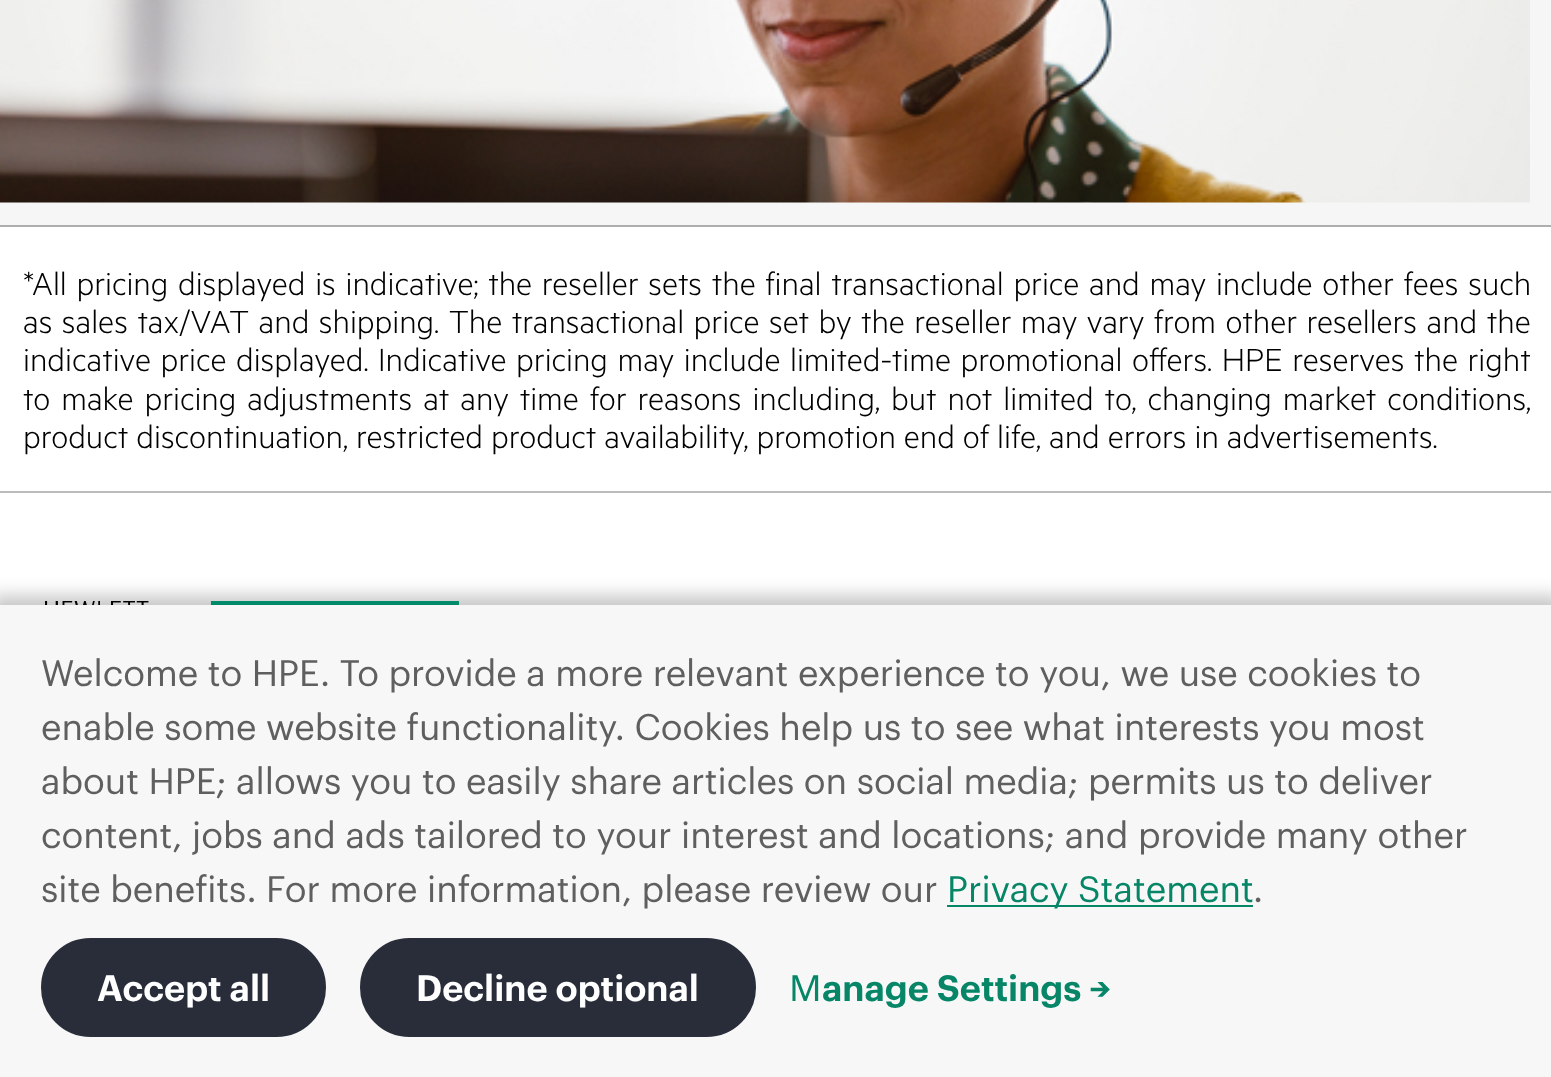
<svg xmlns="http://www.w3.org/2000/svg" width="1551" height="1077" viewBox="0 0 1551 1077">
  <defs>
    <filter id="blur1" x="-50%" y="-200%" width="200%" height="500%"><feGaussianBlur stdDeviation="9"/></filter>
  </defs>
  <rect width="100%" height="100%" fill="#ffffff"/>
  <rect x="0" y="0" width="1551" height="225" fill="#f6f6f6"/>
  <image x="0" y="0" width="1530" height="203" href="img1.png"/>
  <rect x="0" y="225" width="1551" height="2" fill="#aeaeae"/>
  <text x="23" y="295" word-spacing="1.75" font-family="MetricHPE" font-size="36" font-weight="300" fill="#000000">*All pricing displayed is indicative; the reseller sets the final transactional price and may include other fees such</text>
  <text x="23" y="333" word-spacing="1.5" font-family="MetricHPE" font-size="36" font-weight="300" fill="#000000">as sales tax/VAT and shipping. The transactional price set by the reseller may vary from other resellers and the</text>
  <text x="23" y="371" word-spacing="1.6" font-family="MetricHPE" font-size="36" font-weight="300" fill="#000000">indicative price displayed. Indicative pricing may include limited-time promotional offers. HPE reserves the right</text>
  <text x="23" y="410" word-spacing="3" font-family="MetricHPE" font-size="36" font-weight="300" fill="#000000">to make pricing adjustments at any time for reasons including, but not limited to, changing market conditions,</text>
  <text x="23" y="448" font-family="MetricHPE" font-size="36" font-weight="300" fill="#000000">product discontinuation, restricted product availability, promotion end of life, and errors in advertisements.</text>
  <rect x="0" y="491" width="1551" height="2" fill="#bbbbbb"/>
  <image x="45" y="601" width="414" height="4" href="img2.png"/>
  <rect x="-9" y="596" width="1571" height="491" fill="#000000" fill-opacity="0.23" filter="url(#blur1)"/>
  <rect x="0" y="605" width="1551" height="472" fill="#f7f7f7"/>
  <text x="41" y="686" font-family="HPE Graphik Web" font-size="36" fill="#5f5f5f">Welcome to HPE. To provide a more relevant experience to you, we use cookies to</text>
  <text x="41" y="740" font-family="HPE Graphik Web" font-size="36" fill="#5f5f5f">enable some website functionality. Cookies help us to see what interests you most</text>
  <text x="41" y="794" font-family="HPE Graphik Web" font-size="36" fill="#5f5f5f">about HPE; allows you to easily share articles on social media; permits us to deliver</text>
  <text x="41" y="848" font-family="HPE Graphik Web" font-size="36" fill="#5f5f5f">content, jobs and ads tailored to your interest and locations; and provide many other</text>
  <text x="41" y="902" font-family="HPE Graphik Web" font-size="36" fill="#5f5f5f">site benefits. For more information, please review our</text>
  <rect x="947" y="905" width="306" height="2" fill="#068667"/>
  <text x="947" y="902" font-family="HPE Graphik Web" font-size="36" fill="#068667">Privacy Statement</text>
  <text x="1253" y="902" font-family="HPE Graphik Web" font-size="36" fill="#5f5f5f">.</text>
  <rect x="42" y="939" width="283" height="97" rx="48.5" fill="#292d3a" stroke="#292e3a" stroke-width="2"/>
  <text x="97" y="1001" font-family="HPE Graphik Web" font-size="36" font-weight="600" fill="#ffffff">Accept all</text>
  <rect x="361" y="939" width="394" height="97" rx="48.5" fill="#292d3a" stroke="#292e3a" stroke-width="2"/>
  <text x="416" y="1001" font-family="HPE Graphik Web" font-size="36" font-weight="600" fill="#ffffff">Decline optional</text>
  <text x="789" y="1001" font-family="Noto Sans" font-size="36" fill="#068667">M</text>
  <text x="822" y="1001" font-family="HPE Graphik Web" font-size="36" font-weight="600" fill="#068667">anage Settings →</text>
</svg>
